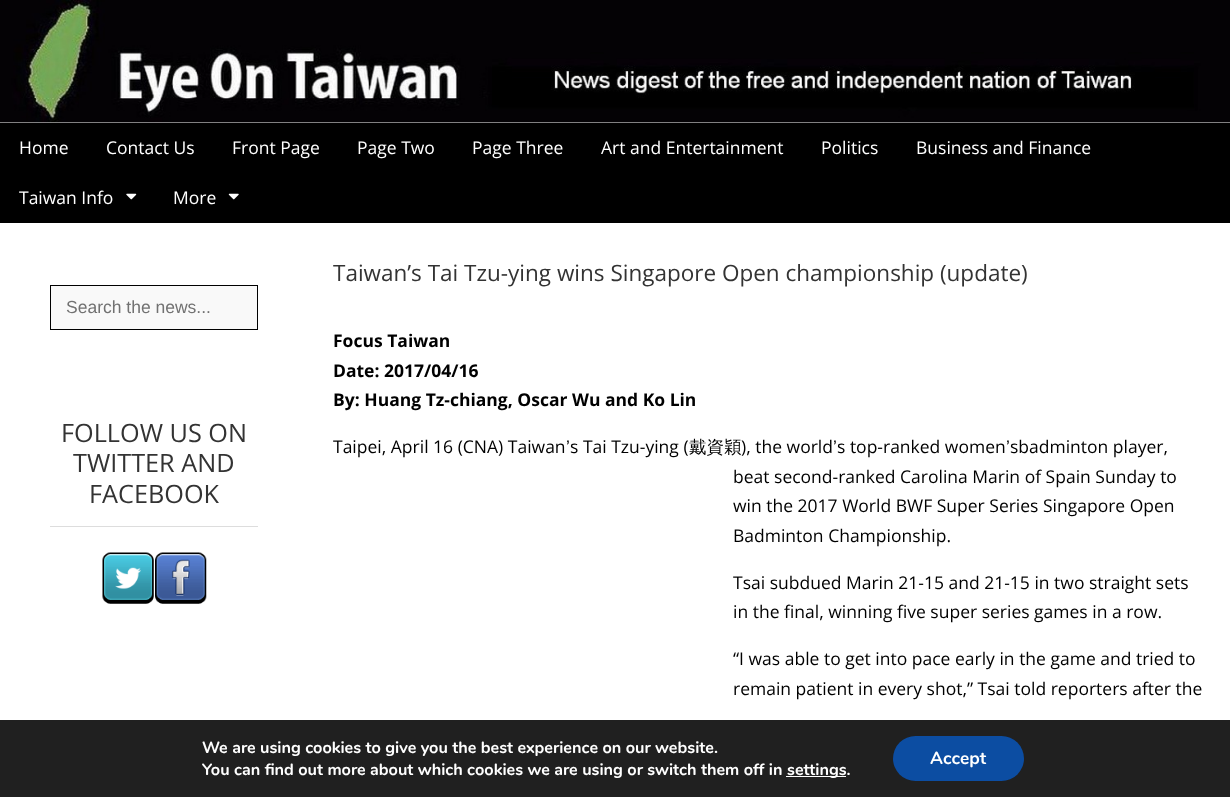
<svg xmlns="http://www.w3.org/2000/svg" width="1230" height="797" viewBox="0 0 1230 797">
  <rect width="100%" height="100%" fill="#ffffff"/>
  <image x="0" y="0" width="1230" height="123" href="img1.png"/>
  <rect x="0" y="123" width="1230" height="100" fill="#000000"/>
  <text x="19" y="154" font-family="Open Sans" font-size="17.5" fill="#ffffff">Home</text>
  <text x="106" y="154" font-family="Open Sans" font-size="17.5" fill="#ffffff">Contact Us</text>
  <text x="232" y="154" font-family="Open Sans" font-size="17.5" fill="#ffffff">Front Page</text>
  <text x="357" y="154" font-family="Open Sans" font-size="17.5" fill="#ffffff">Page Two</text>
  <text x="472" y="154" font-family="Open Sans" font-size="17.5" fill="#ffffff">Page Three</text>
  <text x="601" y="154" font-family="Open Sans" font-size="17.5" fill="#ffffff">Art and Entertainment</text>
  <text x="821" y="154" font-family="Open Sans" font-size="17.5" fill="#ffffff">Politics</text>
  <text x="916" y="154" font-family="Open Sans" font-size="17.5" fill="#ffffff">Business and Finance</text>
  <text x="19" y="204" font-family="Open Sans" font-size="17.5" fill="#ffffff">Taiwan Info</text>
  <image x="126" y="193" width="11" height="7" href="img2.png"/>
  <text x="173" y="204" font-family="Open Sans" font-size="17.5" fill="#ffffff">More</text>
  <image x="228" y="193" width="11" height="7" href="img3.png"/>
  <rect x="50.5" y="285.5" width="207" height="44" fill="#f9f9f9" stroke="#000000"/>
  <text x="66" y="313" font-family="Liberation Sans" font-size="17.5" fill="#727272">Search the news...</text>
  <rect x="50" y="526" width="208" height="1" fill="#dddddd"/>
  <text x="61" y="442" font-family="Open Sans" font-size="25.25" fill="#333333">FOLLOW US ON</text>
  <text x="73" y="472" font-family="Open Sans" font-size="25.25" fill="#333333">TWITTER AND</text>
  <text x="89" y="503" font-family="Open Sans" font-size="25.25" fill="#333333">FACEBOOK</text>
  <image x="102" y="552" width="52" height="52" href="img4.png"/>
  <image x="155" y="552" width="52" height="52" href="img5.png"/>
  <text x="333" y="281" font-family="Open Sans" font-size="22.5" fill="#333333">Taiwan’s Tai Tzu-ying wins Singapore Open championship (update)</text>
  <text x="333" y="347" font-family="Open Sans" font-size="17.5" font-weight="bold" fill="#000000">Focus Taiwan</text>
  <text x="333" y="377" font-family="Open Sans" font-size="17.5" font-weight="bold" fill="#000000">Date: 2017/04/16</text>
  <text x="333" y="406" font-family="Open Sans" font-size="17.5" font-weight="bold" fill="#000000">By: Huang Tz-chiang, Oscar Wu and Ko Lin</text>
  <text x="333" y="453" font-family="Open Sans" font-size="17.5" fill="#000000">Taipei, April 16 (CNA) Taiwan</text>
  <text x="566" y="453" font-family="WenQuanYi Zen Hei" font-size="17.5" font-weight="500" fill="#000000">’</text>
  <text x="570" y="453" font-family="Open Sans" font-size="17.5" fill="#000000">s Tai Tzu-ying (</text>
  <text x="689" y="453" font-family="WenQuanYi Zen Hei" font-size="17.5" font-weight="500" fill="#000000">戴資穎</text>
  <text x="741" y="453" font-family="Open Sans" font-size="17.5" fill="#000000">), the world</text>
  <text x="833" y="453" font-family="WenQuanYi Zen Hei" font-size="17.5" font-weight="500" fill="#000000">’</text>
  <text x="837" y="453" font-family="Open Sans" font-size="17.5" fill="#000000">s top-ranked women</text>
  <text x="1006" y="453" font-family="WenQuanYi Zen Hei" font-size="17.5" font-weight="500" fill="#000000">’</text>
  <text x="1010" y="453" font-family="Open Sans" font-size="17.5" fill="#000000">sbadminton player,</text>
  <text x="733" y="483" font-family="Open Sans" font-size="17.5" fill="#000000">beat second-ranked Carolina Marin of Spain Sunday to</text>
  <text x="733" y="512" font-family="Open Sans" font-size="17.5" fill="#000000">win the 2017 World BWF Super Series Singapore Open</text>
  <text x="733" y="542" font-family="Open Sans" font-size="17.5" fill="#000000">Badminton Championship.</text>
  <text x="733" y="589" font-family="Open Sans" font-size="17.5" fill="#000000">Tsai subdued Marin 21-15 and 21-15 in two straight sets</text>
  <text x="733" y="618" font-family="Open Sans" font-size="17.5" fill="#000000">in the final, winning five super series games in a row.</text>
  <text x="733" y="665" font-family="Open Sans" font-size="17.5" fill="#000000">“I was able to get into pace early in the game and tried to</text>
  <text x="733" y="695" font-family="Open Sans" font-size="17.5" fill="#000000">remain patient in every shot,” Tsai told reporters after the</text>
  <rect x="0" y="720" width="1230" height="77" fill="#202020"/>
  <text x="202" y="753" font-family="Nunito" font-size="16.25" font-weight="bold" fill="#ffffff">We are using cookies to give you the best experience on our website.</text>
  <text x="202" y="775" font-family="Nunito" font-size="16.25" font-weight="bold" fill="#ffffff">You can find out more about which cookies we are using or switch them off in</text>
  <rect x="786" y="776" width="60" height="1" fill="#ffffff"/>
  <text x="787" y="775" font-family="Nunito" font-size="16.25" font-weight="bold" fill="#ffffff">settings.</text>
  <rect x="893" y="736" width="131" height="45" rx="22.5" fill="#0c4da2"/>
  <text x="930" y="764" font-family="Nunito" font-size="17.5" font-weight="bold" fill="#ffffff">Accept</text>
</svg>
